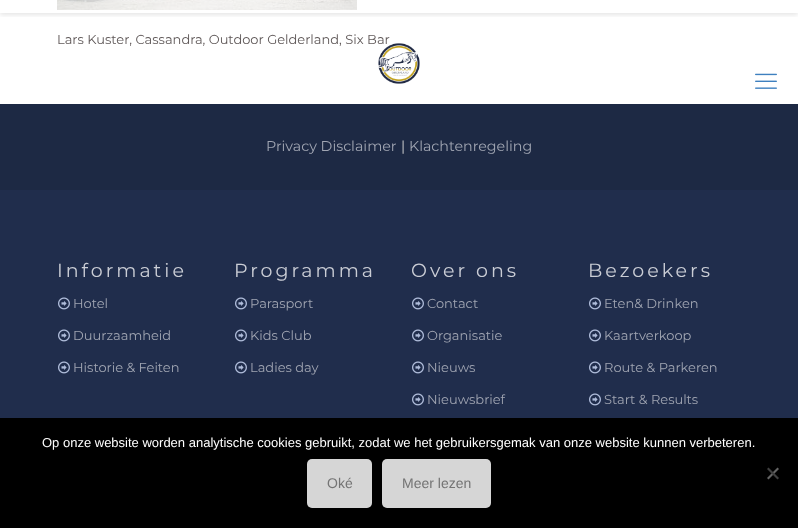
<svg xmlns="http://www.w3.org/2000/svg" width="798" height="528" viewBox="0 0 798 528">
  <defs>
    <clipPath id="clip1"><rect x="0" y="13" width="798" height="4"/></clipPath>
    <filter id="blur1" x="-50%" y="-200%" width="200%" height="500%"><feGaussianBlur stdDeviation="2.5"/></filter>
  </defs>
  <rect width="100%" height="100%" fill="#ffffff"/>
  <image x="57" y="0" width="300" height="10" href="img3.png"/>
  <g clip-path="url(#clip1)">
    <rect x="0" y="-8" width="798" height="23" fill="#080808" fill-opacity="0.1" filter="url(#blur1)"/>
  </g>
  <text x="57" y="44" font-family="Montserrat" font-size="13" fill="#5f5858">Lars Kuster, Cassandra, Outdoor Gelderland, Six Bar</text>
  <image x="378" y="43" width="42" height="41" href="img1.png"/>
  <image x="755" y="73" width="22" height="16" href="img2.png"/>
  <rect x="0" y="190" width="798" height="228" fill="#202d4c"/>
  <rect x="0" y="104" width="798" height="86" fill="#1d2944"/>
  <text x="266" y="151" font-family="Montserrat" font-size="14.25" fill="#a0a5b2">Privacy Disclaimer</text>
  <text x="401" y="151" font-family="Montserrat" font-size="14.25" fill="#cccccc">|</text>
  <text x="409" y="151" font-family="Montserrat" font-size="14.25" fill="#a0a5b2">Klachtenregeling</text>
  <text x="57" y="277" font-family="Montserrat" font-size="19" letter-spacing="3" fill="#cacdd5">Informatie</text>
  <image x="58" y="297" width="12" height="13" href="img4.png"/>
  <text x="73" y="308" font-family="Montserrat" font-size="13" fill="#a0a5b2">Hotel</text>
  <image x="58" y="329" width="12" height="13" href="img4.png"/>
  <text x="73" y="340" font-family="Montserrat" font-size="13" fill="#a0a5b2">Duurzaamheid</text>
  <image x="58" y="361" width="12" height="13" href="img4.png"/>
  <text x="73" y="372" font-family="Montserrat" font-size="13" fill="#a0a5b2">Historie &amp; Feiten</text>
  <text x="234" y="277" font-family="Montserrat" font-size="19" letter-spacing="3" fill="#cacdd5">Programma</text>
  <image x="235" y="297" width="12" height="13" href="img4.png"/>
  <text x="250" y="308" font-family="Montserrat" font-size="13" fill="#a0a5b2">Parasport</text>
  <image x="235" y="329" width="12" height="13" href="img4.png"/>
  <text x="250" y="340" font-family="Montserrat" font-size="13" fill="#a0a5b2">Kids Club</text>
  <image x="235" y="361" width="12" height="13" href="img4.png"/>
  <text x="250" y="372" font-family="Montserrat" font-size="13" fill="#a0a5b2">Ladies day</text>
  <text x="411" y="277" font-family="Montserrat" font-size="19" letter-spacing="3" fill="#cacdd5">Over ons</text>
  <image x="412" y="297" width="12" height="13" href="img4.png"/>
  <text x="427" y="308" font-family="Montserrat" font-size="13" fill="#a0a5b2">Contact</text>
  <image x="412" y="329" width="12" height="13" href="img4.png"/>
  <text x="427" y="340" font-family="Montserrat" font-size="13" fill="#a0a5b2">Organisatie</text>
  <image x="412" y="361" width="12" height="13" href="img4.png"/>
  <text x="427" y="372" font-family="Montserrat" font-size="13" fill="#a0a5b2">Nieuws</text>
  <image x="412" y="393" width="12" height="13" href="img4.png"/>
  <text x="427" y="404" font-family="Montserrat" font-size="13" fill="#a0a5b2">Nieuwsbrief</text>
  <text x="588" y="277" font-family="Montserrat" font-size="19" letter-spacing="3" fill="#cacdd5">Bezoekers</text>
  <image x="589" y="297" width="12" height="13" href="img4.png"/>
  <text x="604" y="308" font-family="Montserrat" font-size="13" fill="#a0a5b2">Eten&amp; Drinken</text>
  <image x="589" y="329" width="12" height="13" href="img4.png"/>
  <text x="604" y="340" font-family="Montserrat" font-size="13" fill="#a0a5b2">Kaartverkoop</text>
  <image x="589" y="361" width="12" height="13" href="img4.png"/>
  <text x="604" y="372" font-family="Montserrat" font-size="13" fill="#a0a5b2">Route &amp; Parkeren</text>
  <image x="589" y="393" width="12" height="13" href="img4.png"/>
  <text x="604" y="404" font-family="Montserrat" font-size="13" fill="#a0a5b2">Start &amp; Results</text>
  <rect x="0" y="418" width="798" height="110" fill="#000000"/>
  <text x="42" y="447" font-family="Liberation Sans" font-size="13" fill="#ffffff">Op onze website worden analytische cookies gebruikt, zodat we het gebruikersgemak van onze website kunnen verbeteren.</text>
  <path d="M777.5 467.5L779 469L768.5 479.5L767 478Z" fill="#656565"/>
  <path d="M767 469L768.5 467.5L779 478L777.5 479.5Z" fill="#404040"/>
  <rect x="307" y="459" width="65" height="49" rx="5" fill="#d6d6d6"/>
  <text x="327" y="488" font-family="Liberation Sans" font-size="14" fill="#747474">Oké</text>
  <rect x="382" y="459" width="109" height="49" rx="5" fill="#d6d6d6"/>
  <text x="402" y="488" font-family="Liberation Sans" font-size="14" fill="#747474">Meer lezen</text>
</svg>
